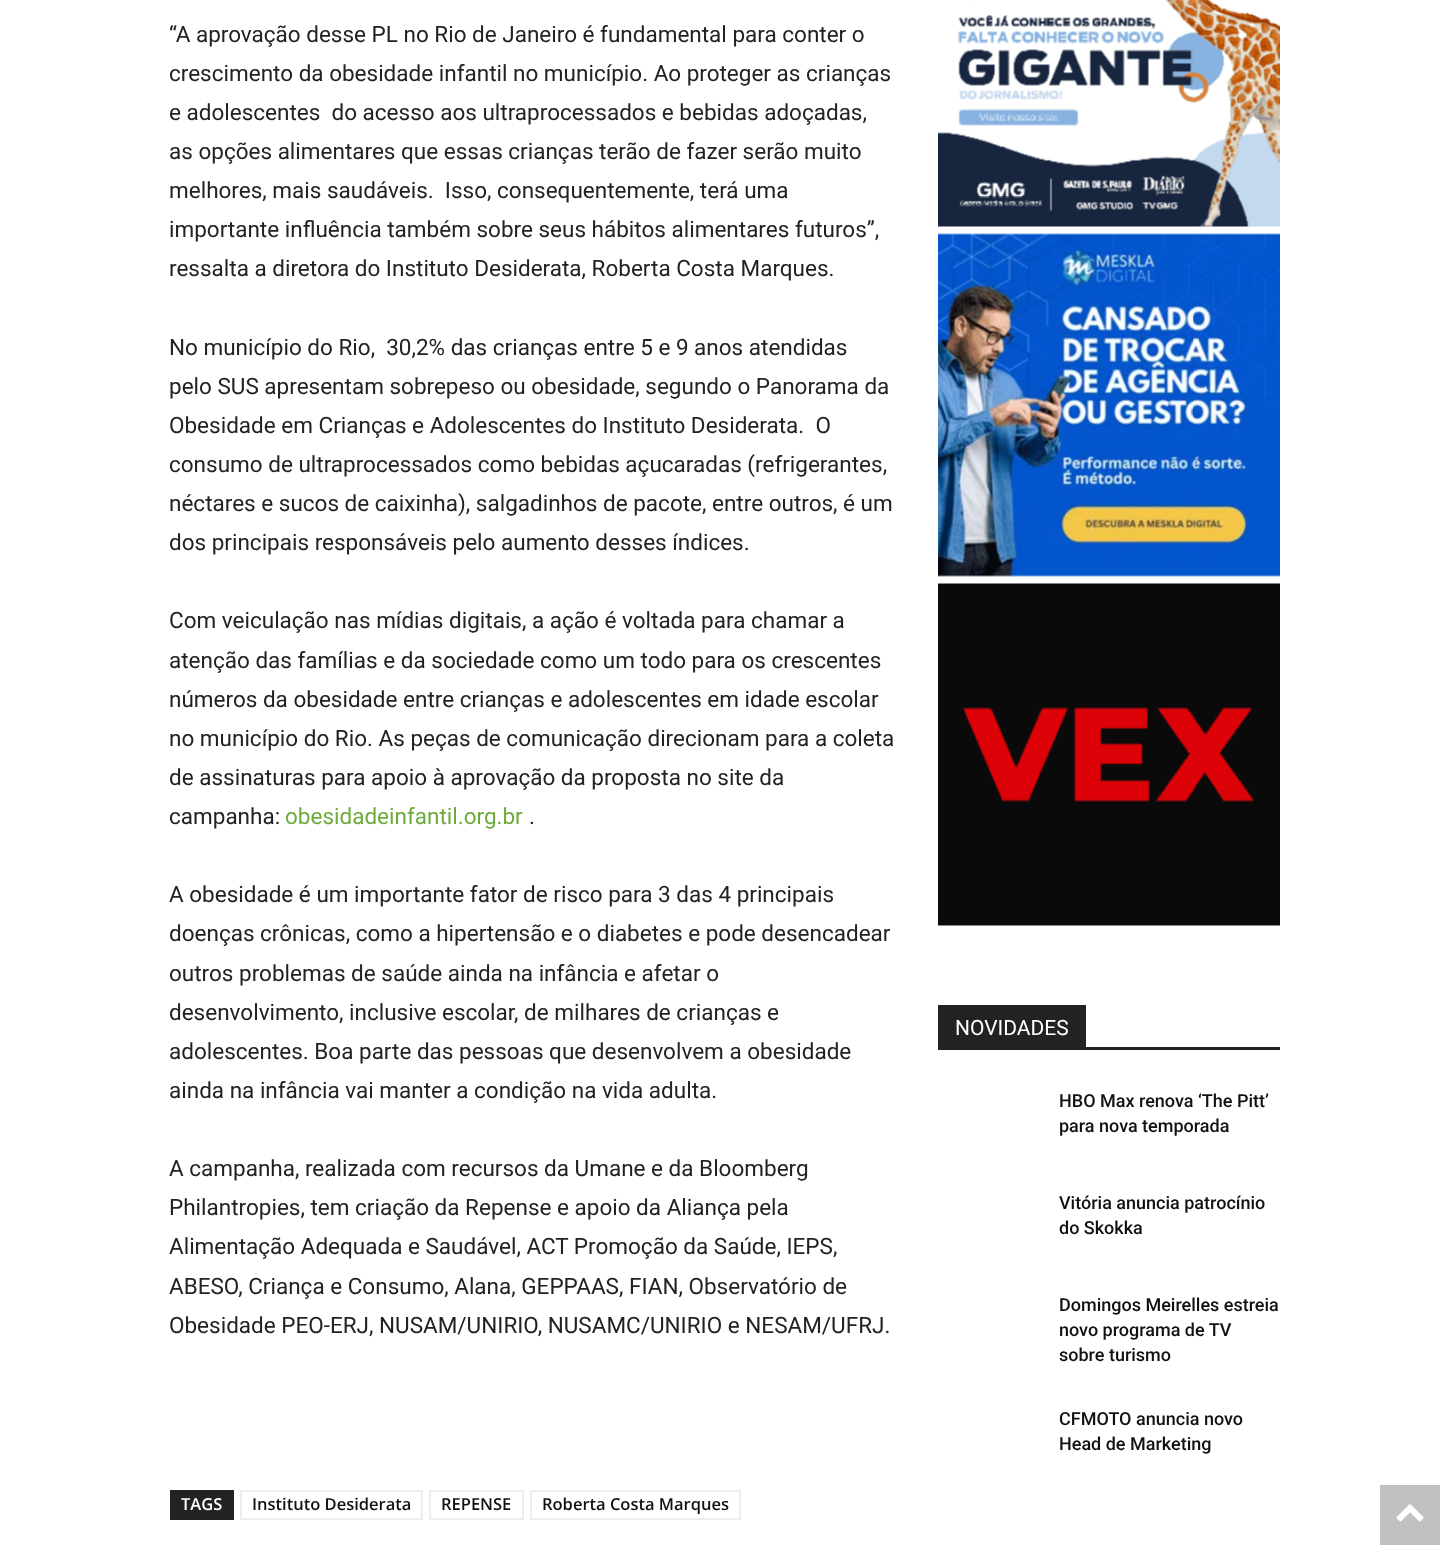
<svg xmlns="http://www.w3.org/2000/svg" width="1447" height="1551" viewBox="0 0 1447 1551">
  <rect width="100%" height="100%" fill="#ffffff"/>
  <text x="169" y="42" font-family="Roboto" font-size="22.5" fill="#222222">“A aprovação desse PL no Rio de Janeiro é fundamental para conter o</text>
  <text x="169" y="81" font-family="Roboto" font-size="22.5" fill="#222222">crescimento da obesidade infantil no município. Ao proteger as crianças</text>
  <text x="169" y="120" font-family="Roboto" font-size="22.5" fill="#222222" xml:space="preserve">e adolescentes  do acesso aos ultraprocessados e bebidas adoçadas,</text>
  <text x="169" y="159" font-family="Roboto" font-size="22.5" fill="#222222">as opções alimentares que essas crianças terão de fazer serão muito</text>
  <text x="169" y="198" font-family="Roboto" font-size="22.5" fill="#222222" xml:space="preserve">melhores, mais saudáveis.  Isso, consequentemente, terá uma</text>
  <text x="169" y="237" font-family="Roboto" font-size="22.5" fill="#222222">importante influência também sobre seus hábitos alimentares futuros”,</text>
  <text x="169" y="276" font-family="Roboto" font-size="22.5" fill="#222222">ressalta a diretora do Instituto Desiderata, Roberta Costa Marques.</text>
  <text x="169" y="355" font-family="Roboto" font-size="22.5" fill="#222222" xml:space="preserve">No município do Rio,  30,2% das crianças entre 5 e 9 anos atendidas</text>
  <text x="169" y="394" font-family="Roboto" font-size="22.5" fill="#222222">pelo SUS apresentam sobrepeso ou obesidade, segundo o Panorama da</text>
  <text x="169" y="433" font-family="Roboto" font-size="22.5" fill="#222222" xml:space="preserve">Obesidade em Crianças e Adolescentes do Instituto Desiderata.  O</text>
  <text x="169" y="472" font-family="Roboto" font-size="22.5" fill="#222222">consumo de ultraprocessados como bebidas açucaradas (refrigerantes,</text>
  <text x="169" y="511" font-family="Roboto" font-size="22.5" fill="#222222">néctares e sucos de caixinha), salgadinhos de pacote, entre outros, é um</text>
  <text x="169" y="550" font-family="Roboto" font-size="22.5" fill="#222222">dos principais responsáveis pelo aumento desses índices.</text>
  <text x="169" y="628" font-family="Roboto" font-size="22.5" fill="#222222">Com veiculação nas mídias digitais, a ação é voltada para chamar a</text>
  <text x="169" y="668" font-family="Roboto" font-size="22.5" fill="#222222">atenção das famílias e da sociedade como um todo para os crescentes</text>
  <text x="169" y="707" font-family="Roboto" font-size="22.5" fill="#222222">números da obesidade entre crianças e adolescentes em idade escolar</text>
  <text x="169" y="746" font-family="Roboto" font-size="22.5" fill="#222222">no município do Rio. As peças de comunicação direcionam para a coleta</text>
  <text x="169" y="785" font-family="Roboto" font-size="22.5" fill="#222222">de assinaturas para apoio à aprovação da proposta no site da</text>
  <text x="169" y="824" font-family="Roboto" font-size="22.5" fill="#222222">campanha:</text>
  <text x="285" y="824" font-family="Roboto" font-size="22.5" fill="#6dab3c">obesidadeinfantil.org.br</text>
  <text x="529" y="824" font-family="Roboto" font-size="22.5" fill="#222222">.</text>
  <text x="169" y="902" font-family="Roboto" font-size="22.5" fill="#222222">A obesidade é um importante fator de risco para 3 das 4 principais</text>
  <text x="169" y="941" font-family="Roboto" font-size="22.5" fill="#222222">doenças crônicas, como a hipertensão e o diabetes e pode desencadear</text>
  <text x="169" y="981" font-family="Roboto" font-size="22.5" fill="#222222">outros problemas de saúde ainda na infância e afetar o</text>
  <text x="169" y="1020" font-family="Roboto" font-size="22.5" fill="#222222">desenvolvimento, inclusive escolar, de milhares de crianças e</text>
  <text x="169" y="1059" font-family="Roboto" font-size="22.5" fill="#222222">adolescentes. Boa parte das pessoas que desenvolvem a obesidade</text>
  <text x="169" y="1098" font-family="Roboto" font-size="22.5" fill="#222222">ainda na infância vai manter a condição na vida adulta.</text>
  <text x="169" y="1176" font-family="Roboto" font-size="22.5" fill="#222222">A campanha, realizada com recursos da Umane e da Bloomberg</text>
  <text x="169" y="1215" font-family="Roboto" font-size="22.5" fill="#222222">Philantropies, tem criação da Repense e apoio da Aliança pela</text>
  <text x="169" y="1254" font-family="Roboto" font-size="22.5" fill="#222222">Alimentação Adequada e Saudável, ACT Promoção da Saúde, IEPS,</text>
  <text x="169" y="1294" font-family="Roboto" font-size="22.5" fill="#222222">ABESO, Criança e Consumo, Alana, GEPPAAS, FIAN, Observatório de</text>
  <text x="169" y="1333" font-family="Roboto" font-size="22.5" fill="#222222">Obesidade PEO-ERJ, NUSAM/UNIRIO, NUSAMC/UNIRIO e NESAM/UFRJ.</text>
  <rect x="170" y="1490" width="64" height="30" fill="#222222"/>
  <text x="181" y="1510" font-family="Open Sans" font-size="16.5" font-weight="600" fill="#ffffff">TAGS</text>
  <rect x="241" y="1491" width="181" height="28" fill="none" stroke="#ededed" stroke-width="2"/>
  <text x="252" y="1510" font-family="Open Sans" font-size="16.5" font-weight="600" fill="#111111">Instituto Desiderata</text>
  <rect x="430" y="1491" width="93" height="28" fill="none" stroke="#ededed" stroke-width="2"/>
  <text x="441" y="1510" font-family="Open Sans" font-size="16.5" font-weight="600" fill="#111111">REPENSE</text>
  <rect x="531" y="1491" width="209" height="28" fill="none" stroke="#ededed" stroke-width="2"/>
  <text x="542" y="1510" font-family="Open Sans" font-size="16.5" font-weight="600" fill="#111111">Roberta Costa Marques</text>
  <image x="938" y="0" width="342" height="227" href="img1.png"/>
  <image x="938" y="233" width="342" height="344" href="img2.png"/>
  <image x="938" y="583" width="342" height="343" href="img3.png"/>
  <rect x="938" y="1047" width="342" height="3" fill="#222222"/>
  <rect x="938" y="1005" width="148" height="42" fill="#222222"/>
  <text x="955" y="1035" font-family="Roboto" font-size="21" fill="#ffffff">NOVIDADES</text>
  <text x="1059" y="1107" font-family="Roboto" font-size="18" font-weight="500" fill="#111111">HBO Max renova ‘The Pitt’</text>
  <text x="1059" y="1132" font-family="Roboto" font-size="18" font-weight="500" fill="#111111">para nova temporada</text>
  <text x="1059" y="1209" font-family="Roboto" font-size="18" font-weight="500" fill="#111111">Vitória anuncia patrocínio</text>
  <text x="1059" y="1234" font-family="Roboto" font-size="18" font-weight="500" fill="#111111">do Skokka</text>
  <text x="1059" y="1311" font-family="Roboto" font-size="18" font-weight="500" fill="#111111">Domingos Meirelles estreia</text>
  <text x="1059" y="1336" font-family="Roboto" font-size="18" font-weight="500" fill="#111111">novo programa de TV</text>
  <text x="1059" y="1361" font-family="Roboto" font-size="18" font-weight="500" fill="#111111">sobre turismo</text>
  <text x="1059" y="1425" font-family="Roboto" font-size="18" font-weight="500" fill="#111111">CFMOTO anuncia novo</text>
  <text x="1059" y="1450" font-family="Roboto" font-size="18" font-weight="500" fill="#111111">Head de Marketing</text>
  <rect x="1380" y="1485" width="60" height="60" fill="#c1c1c1"/>
  <image x="1396" y="1504" width="28" height="18" href="img4.png"/>
</svg>
